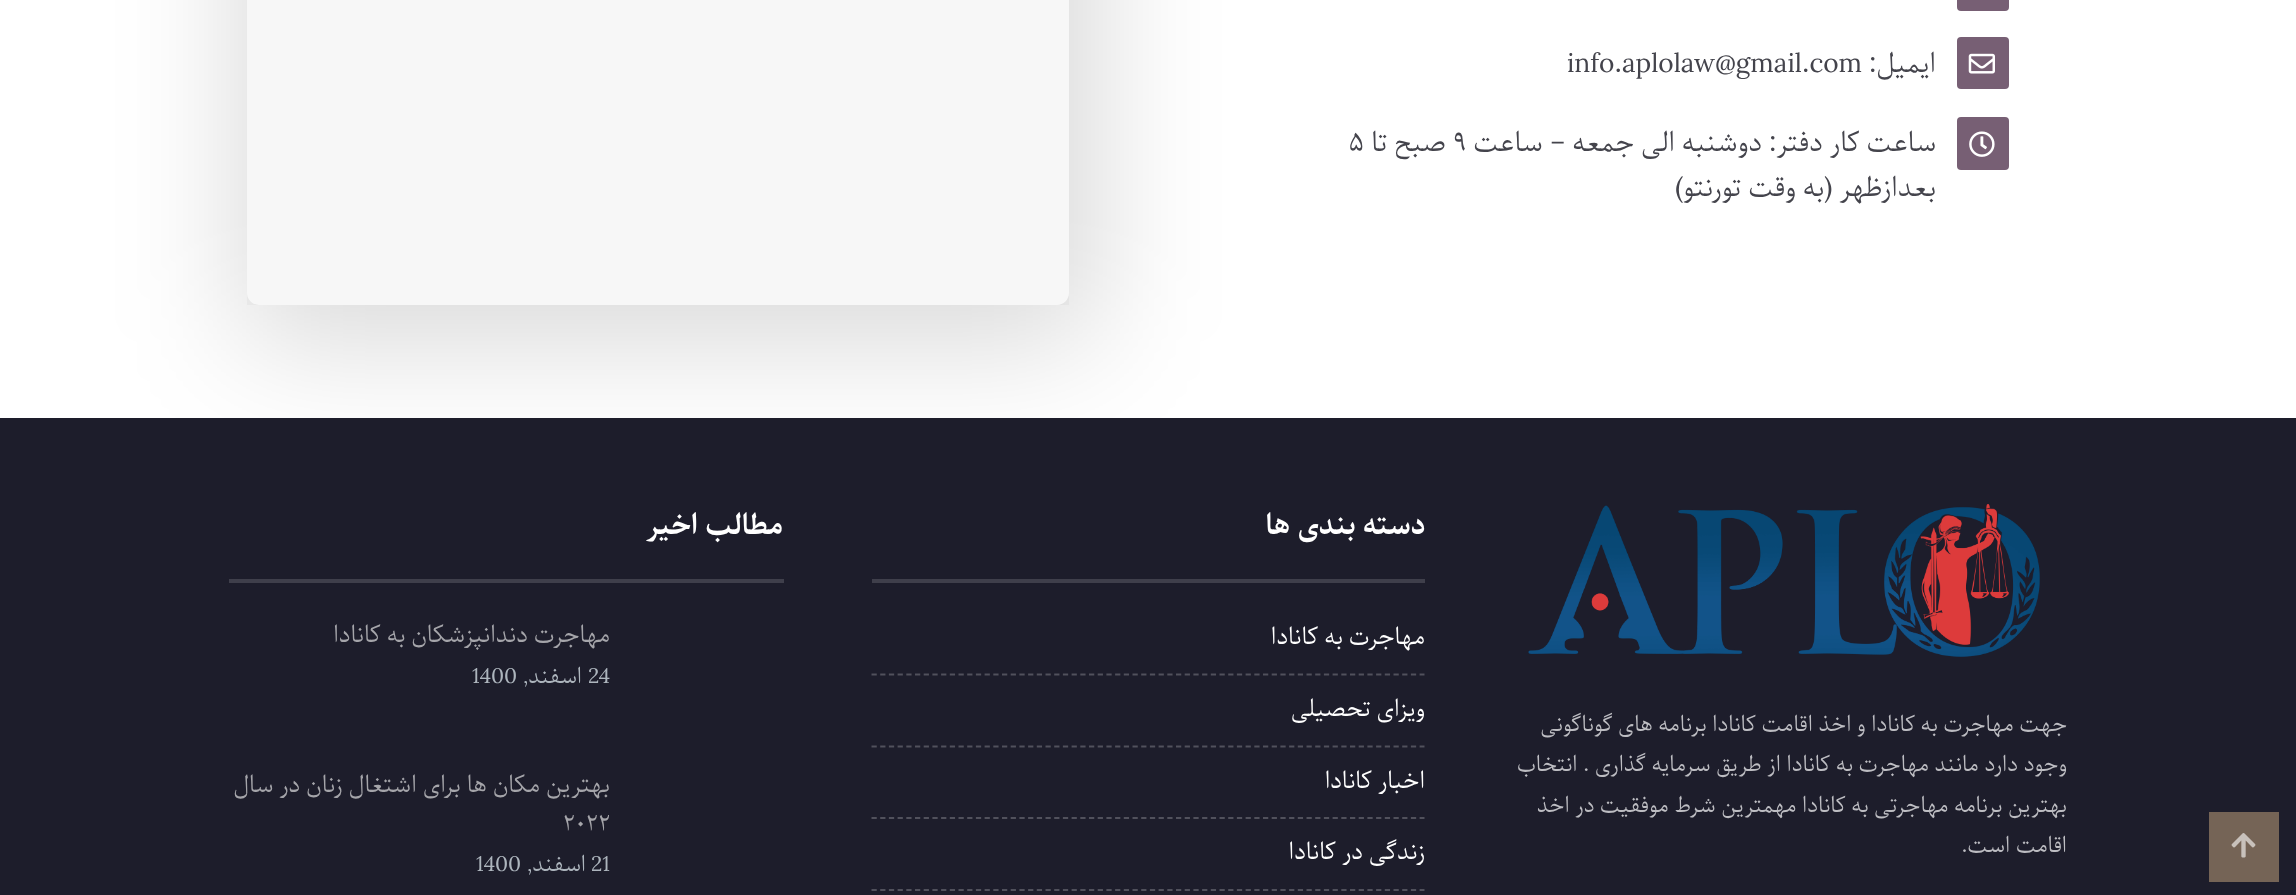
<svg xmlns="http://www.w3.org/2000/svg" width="2296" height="895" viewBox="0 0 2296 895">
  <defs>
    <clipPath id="clip1"><rect x="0" y="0" width="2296" height="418"/></clipPath>
    <clipPath id="clip2"><path d="M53 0H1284V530H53ZM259-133H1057C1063.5-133 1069-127.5 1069-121V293C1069 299.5 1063.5 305 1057 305H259C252.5 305 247 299.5 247 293V-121C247-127.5 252.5-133 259-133Z" clip-rule="evenodd"/></clipPath>
    <filter id="blur1" x="-50%" y="-200%" width="200%" height="500%"><feGaussianBlur stdDeviation="62"/></filter>
  </defs>
  <rect width="100%" height="100%" fill="#ffffff"/>
  <rect x="1957" y="-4" width="52" height="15" rx="4" fill="#775f74"/>
  <rect x="1957" y="37" width="52" height="52" rx="4" fill="#775f74"/>
  <image x="1968" y="53" width="27" height="21" href="img1.png"/>
  <text x="1936" y="72" font-family="Parastoo" font-size="26.25" direction="rtl" fill="#44444c">ایمیل:</text>
  <text x="1567" y="72" font-family="Parastoo" font-size="26.25" fill="#44444c">info.aplolaw@gmail.com</text>
  <rect x="1957" y="117" width="52" height="53" rx="4" fill="#775f74"/>
  <image x="1969" y="131" width="26" height="26" href="img2.png"/>
  <text x="1936" y="151" font-family="Parastoo" font-size="26.25" direction="rtl" fill="#44444c">ساعت کار دفتر: دوشنبه الی جمعه – ساعت</text>
  <text x="1453" y="151" font-family="Parastoo" font-size="26.25" fill="#44444c">۹</text>
  <text x="1446" y="151" font-family="Parastoo" font-size="26.25" direction="rtl" fill="#44444c">صبح تا</text>
  <text x="1349" y="151" font-family="Parastoo" font-size="26.25" fill="#44444c">۵</text>
  <text x="1936" y="196" font-family="Parastoo" font-size="26.25" direction="rtl" fill="#44444c">بعدازظهر (به وقت تورنتو)</text>
  <rect x="247" y="0" width="822" height="305" fill="#f7f7f7"/>
  <rect x="0" y="418" width="2296" height="477" fill="#1d1d2b"/>
  <g clip-path="url(#clip1)">
    <g clip-path="url(#clip2)">
      <rect x="240" y="-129" width="857" height="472" rx="30" fill="#000000" fill-opacity="0.15" filter="url(#blur1)"/>
    </g>
  </g>
  <rect x="2209" y="812" width="70" height="70" fill="#756456"/>
  <image x="2231" y="833" width="25" height="25" href="img3.png"/>
  <image x="1528" y="504" width="512" height="153" href="img4.png"/>
  <text x="2067" y="731" font-family="Parastoo" font-size="21" direction="rtl" fill="#bdbdc2">جهت مهاجرت به کانادا و اخذ اقامت کانادا برنامه های گوناگونی</text>
  <text x="2067" y="771" font-family="Parastoo" font-size="21" direction="rtl" fill="#bdbdc2">وجود دارد مانند مهاجرت به کانادا از طریق سرمایه گذاری . انتخاب</text>
  <text x="2067" y="812" font-family="Parastoo" font-size="21" direction="rtl" fill="#bdbdc2">بهترین برنامه مهاجرتی به کانادا مهمترین شرط موفقیت در اخذ</text>
  <text x="2067" y="852" font-family="Parastoo" font-size="21" direction="rtl" fill="#bdbdc2">اقامت است.</text>
  <text x="1425" y="534" font-family="Parastoo" font-size="28" font-weight="bold" direction="rtl" fill="#ffffff">دسته بندی ها</text>
  <rect x="872" y="579" width="553" height="4" fill="#3f3f4b"/>
  <path d="M871.5 674.5H1424.5" fill="none" stroke="#51515c" stroke-width="1.8" stroke-dasharray="5.25 3.45"/>
  <text x="1425" y="644" font-family="Parastoo" font-size="22.75" direction="rtl" fill="#ffffff">مهاجرت به کانادا</text>
  <path d="M871.5 746.5H1424.5" fill="none" stroke="#51515c" stroke-width="1.8" stroke-dasharray="5.25 3.45"/>
  <text x="1425" y="716" font-family="Parastoo" font-size="22.75" direction="rtl" fill="#ffffff">ویزای تحصیلی</text>
  <path d="M871.5 818H1424.5" fill="none" stroke="#51515c" stroke-width="1.8" stroke-dasharray="5.25 3.45"/>
  <text x="1425" y="788" font-family="Parastoo" font-size="22.75" direction="rtl" fill="#ffffff">اخبار کانادا</text>
  <path d="M871.5 890H1424.5" fill="none" stroke="#51515c" stroke-width="1.8" stroke-dasharray="5.25 3.45"/>
  <text x="1425" y="859" font-family="Parastoo" font-size="22.75" direction="rtl" fill="#ffffff">زندگی در کانادا</text>
  <text x="783" y="534" font-family="Parastoo" font-size="28" font-weight="bold" direction="rtl" fill="#ffffff">مطالب اخیر</text>
  <rect x="229" y="579" width="555" height="4" fill="#3f3f4b"/>
  <text x="610" y="642" font-family="Parastoo" font-size="22.75" direction="rtl" fill="#a5a5aa">مهاجرت دندانپزشکان به کانادا</text>
  <text x="588" y="683" font-family="Parastoo" font-size="21" fill="#adb5bd">24</text>
  <text x="582" y="683" font-family="Parastoo" font-size="21" direction="rtl" fill="#adb5bd">اسفند,</text>
  <text x="472" y="683" font-family="Parastoo" font-size="21" fill="#adb5bd">1400</text>
  <text x="610" y="792" font-family="Parastoo" font-size="22.75" direction="rtl" fill="#a5a5aa">بهترین مکان ها برای اشتغال زنان در سال</text>
  <text x="563" y="831" font-family="Parastoo" font-size="22.75" fill="#a5a5aa">۲۰۲۲</text>
  <text x="591" y="871" font-family="Parastoo" font-size="21" fill="#adb5bd">21</text>
  <text x="586" y="871" font-family="Parastoo" font-size="21" direction="rtl" fill="#adb5bd">اسفند,</text>
  <text x="476" y="871" font-family="Parastoo" font-size="21" fill="#adb5bd">1400</text>
</svg>
